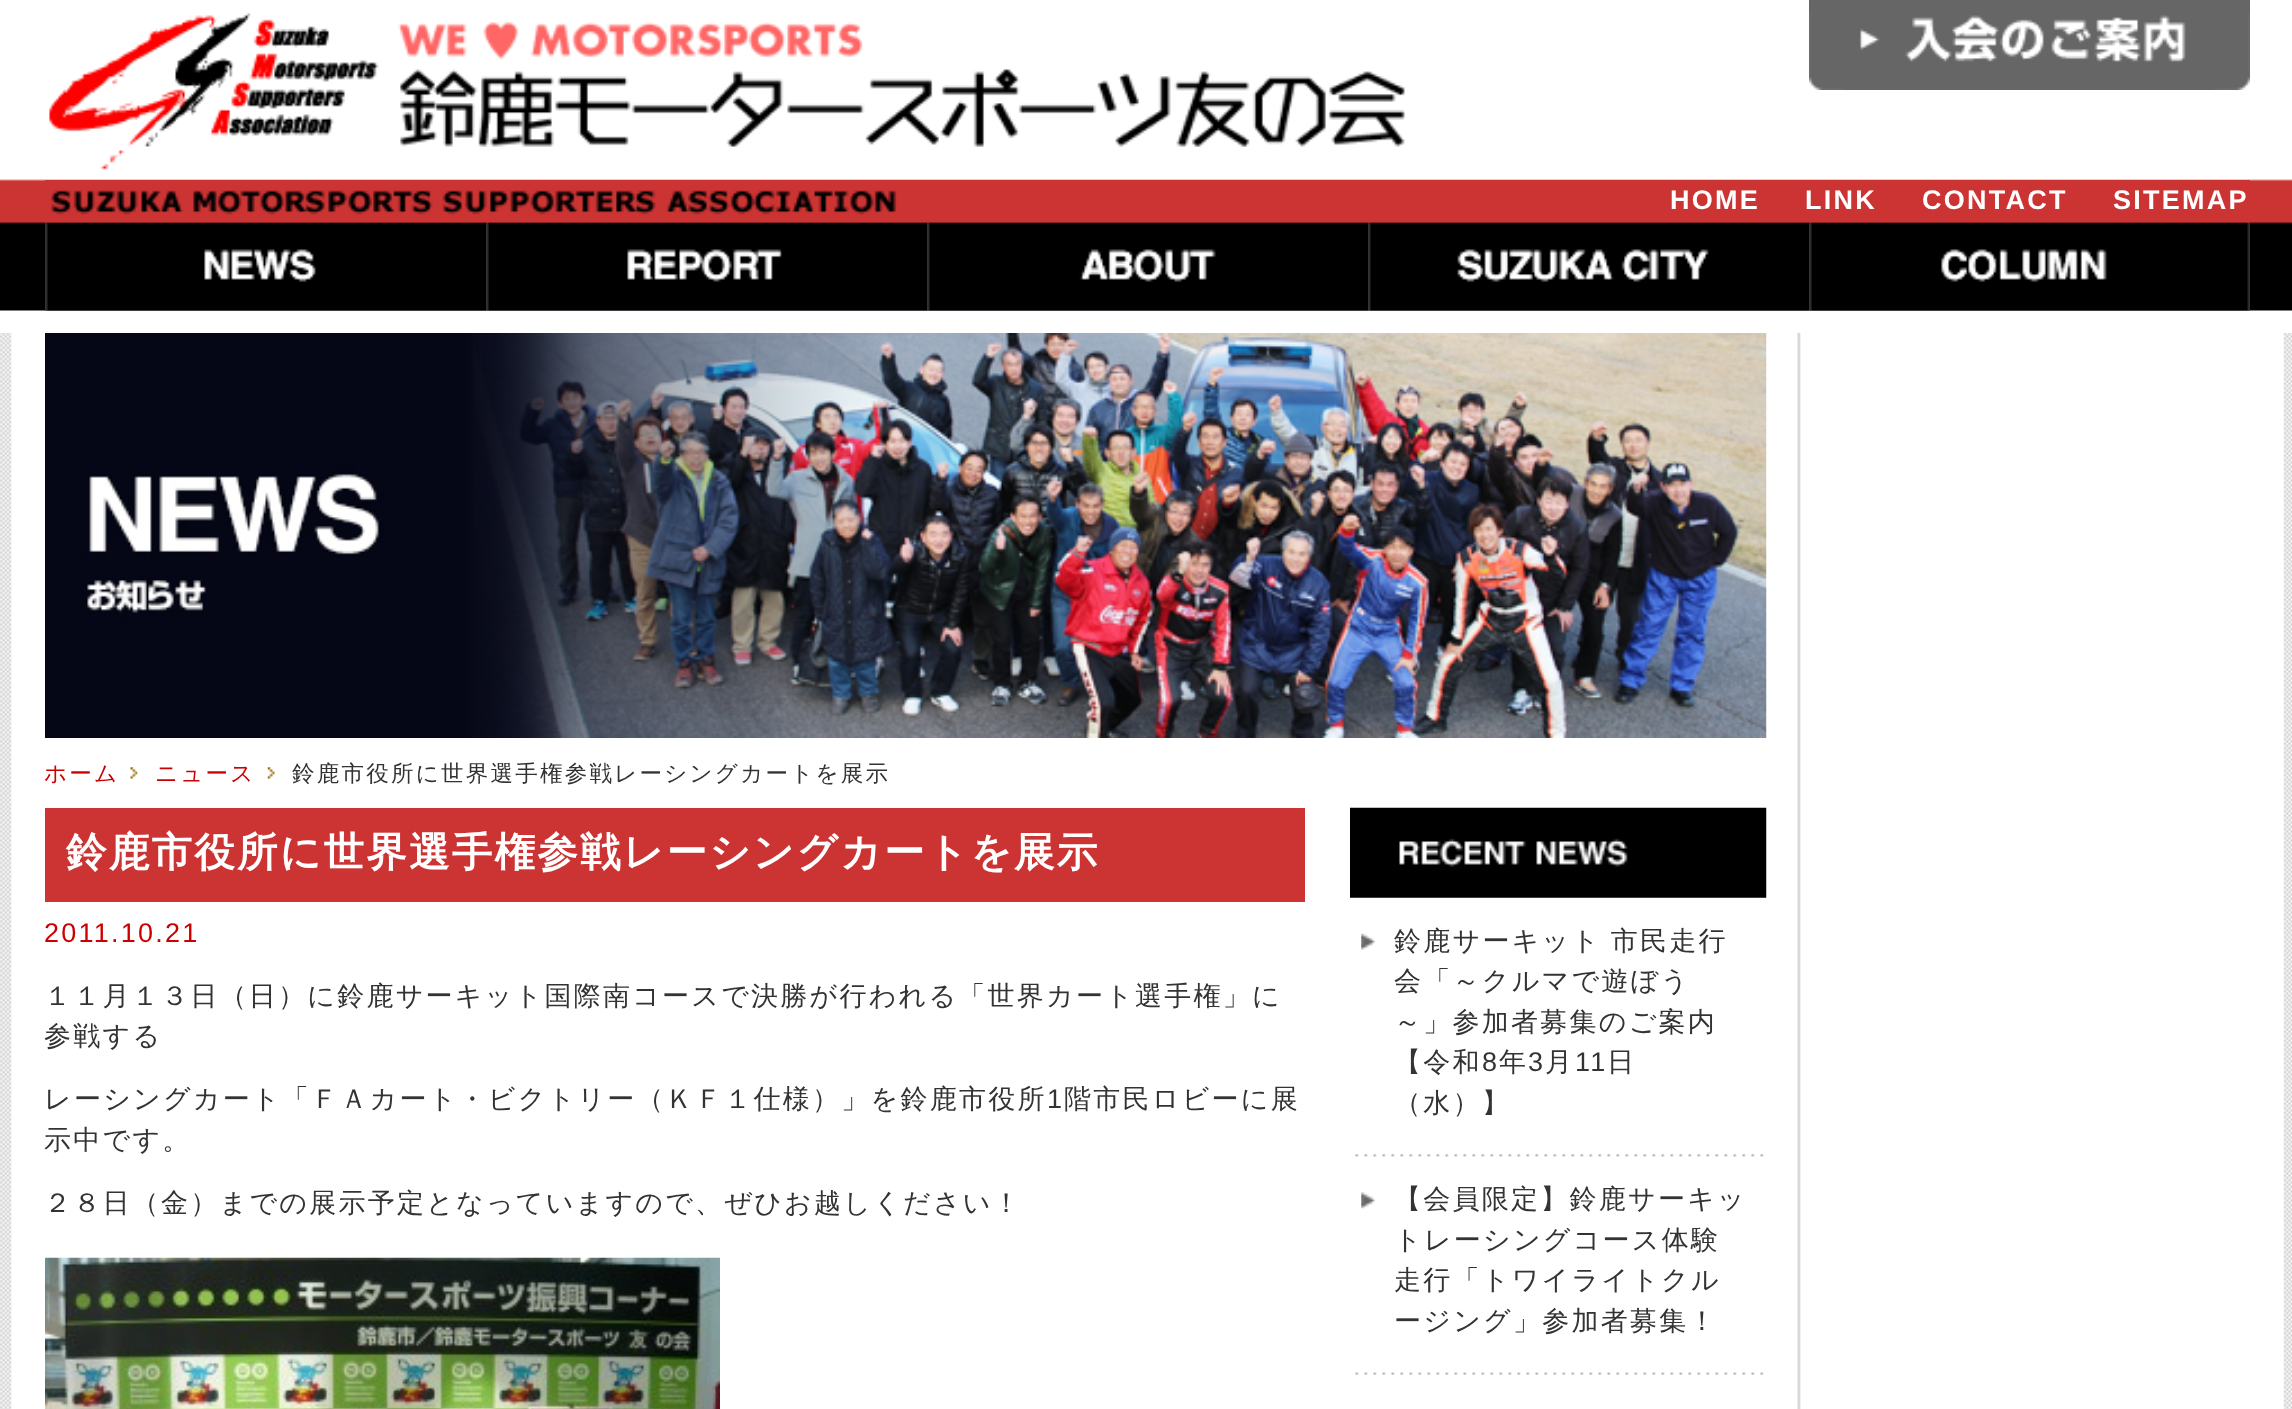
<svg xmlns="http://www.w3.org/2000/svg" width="2292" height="1409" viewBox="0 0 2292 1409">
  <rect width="100%" height="100%" fill="#ffffff"/>
  <image x="0" y="333" width="2292" height="1076" href="img1.png"/>
  <image x="0" y="179" width="2292" height="132" href="img2.png"/>
  <image x="49" y="13" width="1356" height="157" href="img3.png"/>
  <image x="1809" y="0" width="441" height="90" href="img4.png"/>
  <image x="45" y="180" width="2205" height="43" href="img5.png"/>
  <text x="1670" y="209" font-family="Liberation Sans" font-size="27" font-weight="bold" letter-spacing="2.25" fill="#ffffff">HOME</text>
  <text x="1805" y="209" font-family="Liberation Sans" font-size="27" font-weight="bold" letter-spacing="2.25" fill="#ffffff">LINK</text>
  <text x="1922" y="209" font-family="Liberation Sans" font-size="27" font-weight="bold" letter-spacing="2.25" fill="#ffffff">CONTACT</text>
  <text x="2113" y="209" font-family="Liberation Sans" font-size="27" font-weight="bold" letter-spacing="2.25" fill="#ffffff">SITEMAP</text>
  <image x="45" y="222" width="441" height="89" href="img6.png"/>
  <image x="486" y="222" width="441" height="89" href="img7.png"/>
  <image x="927" y="222" width="441" height="89" href="img8.png"/>
  <image x="1368" y="222" width="441" height="89" href="img9.png"/>
  <image x="1809" y="222" width="441" height="89" href="img10.png"/>
  <image x="11" y="333" width="2273" height="1076" href="img11.png"/>
  <image x="45" y="333" width="1722" height="405" href="img12.png"/>
  <image x="130" y="767" width="8" height="12" href="img13.png"/>
  <text x="44" y="781" font-family="WenQuanYi Zen Hei" font-size="22.5" font-weight="500" letter-spacing="2.25" fill="#cc0000">ホーム</text>
  <image x="267" y="767" width="8" height="12" href="img14.png"/>
  <text x="155" y="781" font-family="WenQuanYi Zen Hei" font-size="22.5" font-weight="500" letter-spacing="2.25" fill="#cc0000">ニュース</text>
  <text x="292" y="781" font-family="WenQuanYi Zen Hei" font-size="22.5" font-weight="500" letter-spacing="2.25" fill="#333333">鈴鹿市役所に世界選手権参戦レーシングカートを展示</text>
  <rect x="45" y="808" width="1260" height="94" fill="#cc3333"/>
  <text x="66" y="866" font-family="WenQuanYi Zen Hei" font-size="40.5" font-weight="bold" letter-spacing="2.25" fill="#ffffff">鈴鹿市役所に世界選手権参戦レーシングカートを展示</text>
  <text x="44" y="942" font-family="Liberation Sans" font-size="27" letter-spacing="2.25" fill="#cc0000">2011.10.21</text>
  <text x="44" y="1005" font-family="WenQuanYi Zen Hei" font-size="27" font-weight="500" letter-spacing="2.25" fill="#333333">１１月１３日（日）に鈴鹿サーキット国際南コースで決勝が行われる「世界カート選手権」に</text>
  <text x="44" y="1045" font-family="WenQuanYi Zen Hei" font-size="27" font-weight="500" letter-spacing="2.25" fill="#333333">参戦する</text>
  <text x="44" y="1108" font-family="WenQuanYi Zen Hei" font-size="27" font-weight="500" letter-spacing="2.25" fill="#333333">レーシングカート「ＦＡカート・ビクトリー（ＫＦ１仕様）」を鈴鹿市役所</text>
  <text x="1047" y="1108" font-family="Liberation Sans" font-size="27" letter-spacing="2.25" fill="#333333">1</text>
  <text x="1064" y="1108" font-family="WenQuanYi Zen Hei" font-size="27" font-weight="500" letter-spacing="2.25" fill="#333333">階市民ロビーに展</text>
  <text x="44" y="1149" font-family="WenQuanYi Zen Hei" font-size="27" font-weight="500" letter-spacing="2.25" fill="#333333">示中です。</text>
  <text x="44" y="1212" font-family="WenQuanYi Zen Hei" font-size="27" font-weight="500" letter-spacing="2.25" fill="#333333">２８日（金）までの展示予定となっていますので、ぜひお越しください！</text>
  <image x="45" y="1257" width="675" height="152" href="img15.png"/>
  <image x="1350" y="807" width="417" height="91" href="img16.png"/>
  <image x="1355" y="1154" width="409" height="3" href="img17.png"/>
  <image x="1361" y="933" width="14" height="17" href="img18.png"/>
  <text x="1394" y="950" word-spacing="-1" font-family="WenQuanYi Zen Hei" font-size="27" font-weight="500" letter-spacing="2.25" fill="#333333">鈴鹿サーキット 市民走行</text>
  <text x="1394" y="990" font-family="WenQuanYi Zen Hei" font-size="27" font-weight="500" letter-spacing="2.25" fill="#333333">会「～クルマで遊ぼう</text>
  <text x="1394" y="1031" font-family="WenQuanYi Zen Hei" font-size="27" font-weight="500" letter-spacing="2.25" fill="#333333">～」参加者募集のご案内</text>
  <text x="1394" y="1071" font-family="WenQuanYi Zen Hei" font-size="27" font-weight="500" letter-spacing="2.25" fill="#333333">【令和</text>
  <text x="1482" y="1071" font-family="Liberation Sans" font-size="27" letter-spacing="2.25" fill="#333333">8</text>
  <text x="1499" y="1071" font-family="WenQuanYi Zen Hei" font-size="27" font-weight="500" letter-spacing="2.25" fill="#333333">年</text>
  <text x="1528" y="1071" font-family="Liberation Sans" font-size="27" letter-spacing="2.25" fill="#333333">3</text>
  <text x="1545" y="1071" font-family="WenQuanYi Zen Hei" font-size="27" font-weight="500" letter-spacing="2.25" fill="#333333">月</text>
  <text x="1575" y="1071" font-family="Liberation Sans" font-size="27" letter-spacing="2.25" fill="#333333">11</text>
  <text x="1607" y="1071" font-family="WenQuanYi Zen Hei" font-size="27" font-weight="500" letter-spacing="2.25" fill="#333333">日</text>
  <text x="1394" y="1112" font-family="WenQuanYi Zen Hei" font-size="27" font-weight="500" letter-spacing="2.25" fill="#333333">（水）】</text>
  <image x="1355" y="1372" width="409" height="3" href="img19.png"/>
  <image x="1361" y="1192" width="14" height="17" href="img20.png"/>
  <text x="1394" y="1208" font-family="WenQuanYi Zen Hei" font-size="27" font-weight="500" letter-spacing="2.25" fill="#333333">【会員限定】鈴鹿サーキッ</text>
  <text x="1394" y="1249" font-family="WenQuanYi Zen Hei" font-size="27" font-weight="500" letter-spacing="2.25" fill="#333333">トレーシングコース体験</text>
  <text x="1394" y="1289" font-family="WenQuanYi Zen Hei" font-size="27" font-weight="500" letter-spacing="2.25" fill="#333333">走行「トワイライトクル</text>
  <text x="1394" y="1330" font-family="WenQuanYi Zen Hei" font-size="27" font-weight="500" letter-spacing="2.25" fill="#333333">ージング」参加者募集！</text>
</svg>
